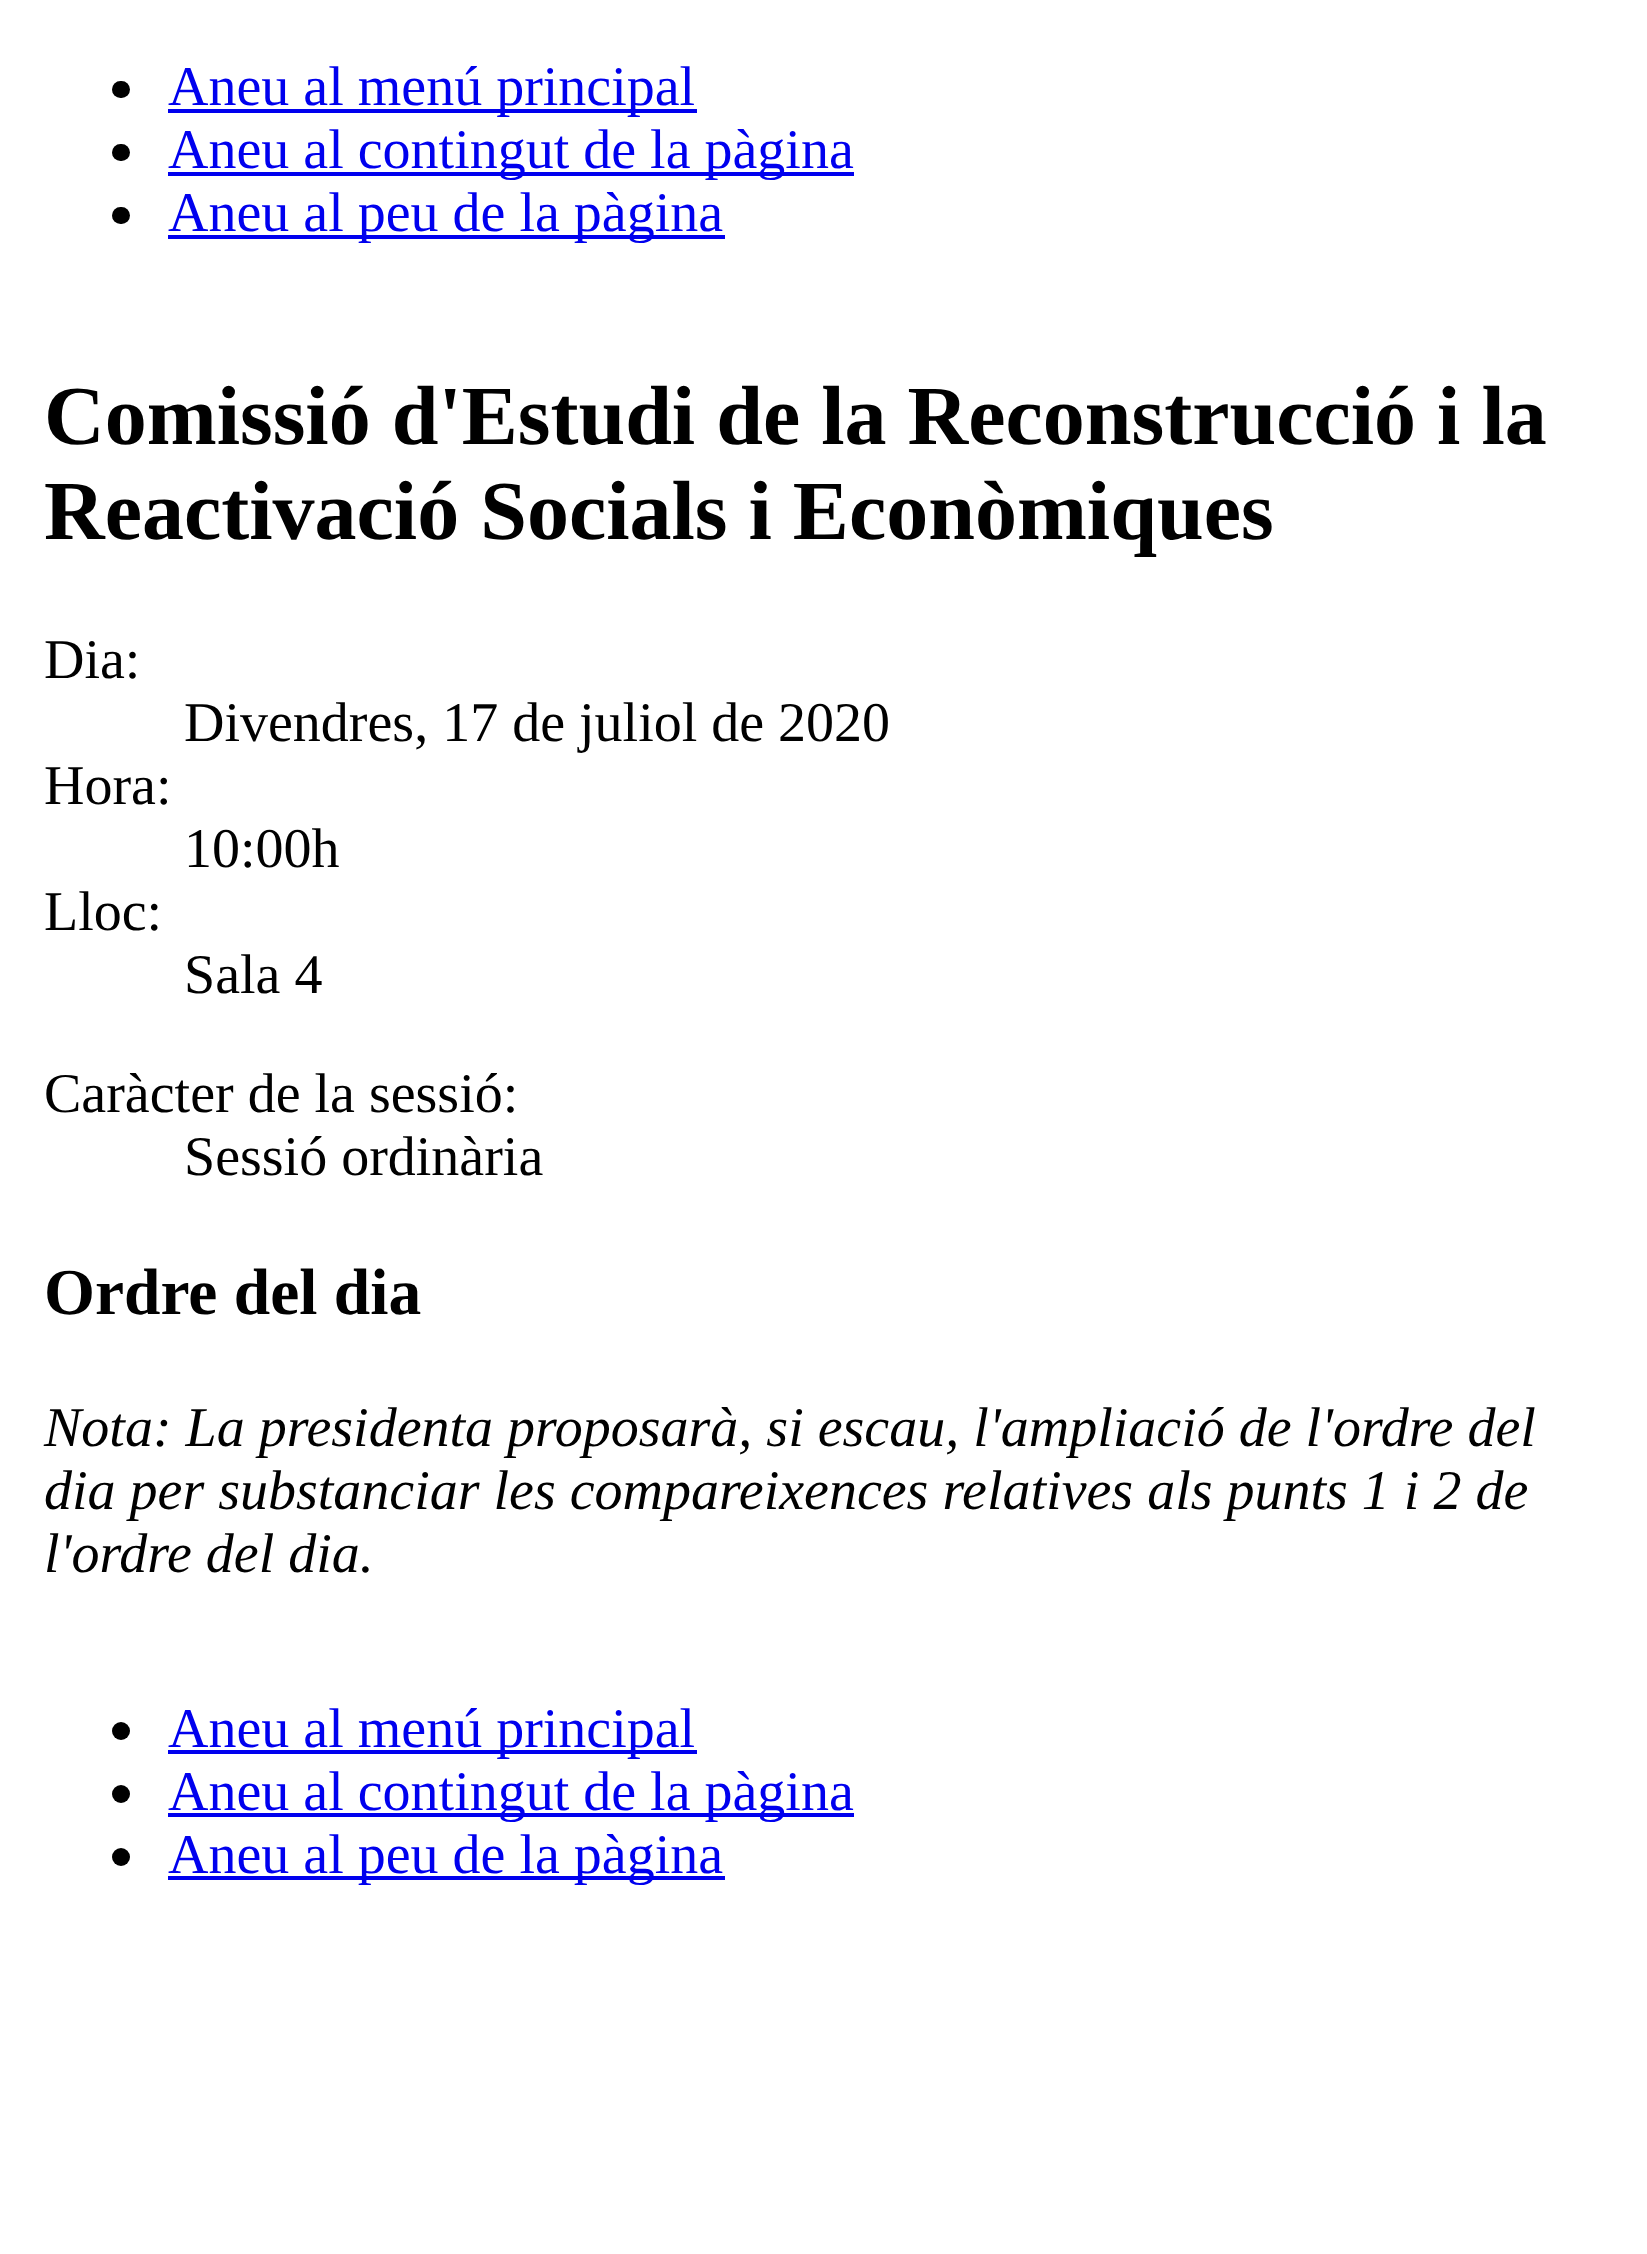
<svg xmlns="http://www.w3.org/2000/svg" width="1647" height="2254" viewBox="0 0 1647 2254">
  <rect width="100%" height="100%" fill="#ffffff"/>
  <rect x="112" y="81" width="18" height="17" rx="8.5" fill="#000000"/>
  <rect x="168" y="109" width="529" height="4" fill="#0000ee"/>
  <text x="168" y="105" font-family="Liberation Serif" font-size="56" fill="#0000ee">Aneu al menú principal</text>
  <rect x="112" y="144" width="18" height="17" rx="8.5" fill="#000000"/>
  <rect x="168" y="172" width="686" height="4" fill="#0000ee"/>
  <text x="168" y="168" font-family="Liberation Serif" font-size="56" fill="#0000ee">Aneu al contingut de la pàgina</text>
  <rect x="112" y="207" width="18" height="17" rx="8.5" fill="#000000"/>
  <rect x="168" y="235" width="557" height="4" fill="#0000ee"/>
  <text x="168" y="231" font-family="Liberation Serif" font-size="56" fill="#0000ee">Aneu al peu de la pàgina</text>
  <text x="44" y="444" font-family="Liberation Serif" font-size="84" font-weight="bold" fill="#000000">Comissió d'Estudi de la Reconstrucció i la</text>
  <text x="44" y="539" font-family="Liberation Serif" font-size="84" font-weight="bold" fill="#000000">Reactivació Socials i Econòmiques</text>
  <text x="44" y="678" font-family="Liberation Serif" font-size="56" fill="#000000">Dia:</text>
  <text x="184" y="741" font-family="Liberation Serif" font-size="56" fill="#000000">Divendres, 17 de juliol de 2020</text>
  <text x="44" y="804" font-family="Liberation Serif" font-size="56" fill="#000000">Hora:</text>
  <text x="184" y="867" font-family="Liberation Serif" font-size="56" fill="#000000">10:00h</text>
  <text x="44" y="930" font-family="Liberation Serif" font-size="56" fill="#000000">Lloc:</text>
  <text x="184" y="993" font-family="Liberation Serif" font-size="56" fill="#000000">Sala 4</text>
  <text x="44" y="1112" font-family="Liberation Serif" font-size="56" fill="#000000">Caràcter de la sessió:</text>
  <text x="184" y="1175" font-family="Liberation Serif" font-size="56" fill="#000000">Sessió ordinària</text>
  <text x="44" y="1314" font-family="Liberation Serif" font-size="65.5" font-weight="bold" fill="#000000">Ordre del dia</text>
  <text x="44" y="1446" font-family="Liberation Serif" font-size="56" font-style="italic" fill="#000000">Nota: La presidenta proposarà, si escau, l'ampliació de l'ordre del</text>
  <text x="44" y="1509" font-family="Liberation Serif" font-size="56" font-style="italic" fill="#000000">dia per substanciar les compareixences relatives als punts 1 i 2 de</text>
  <text x="44" y="1572" font-family="Liberation Serif" font-size="56" font-style="italic" fill="#000000">l'ordre del dia.</text>
  <circle cx="121" cy="1731" r="9" fill="#000000"/>
  <rect x="168" y="1750" width="529" height="4" fill="#0000ee"/>
  <text x="168" y="1747" font-family="Liberation Serif" font-size="56" fill="#0000ee">Aneu al menú principal</text>
  <circle cx="121" cy="1794" r="9" fill="#000000"/>
  <rect x="168" y="1813" width="686" height="4" fill="#0000ee"/>
  <text x="168" y="1810" font-family="Liberation Serif" font-size="56" fill="#0000ee">Aneu al contingut de la pàgina</text>
  <circle cx="121" cy="1857" r="9" fill="#000000"/>
  <rect x="168" y="1876" width="557" height="4" fill="#0000ee"/>
  <text x="168" y="1873" font-family="Liberation Serif" font-size="56" fill="#0000ee">Aneu al peu de la pàgina</text>
</svg>
